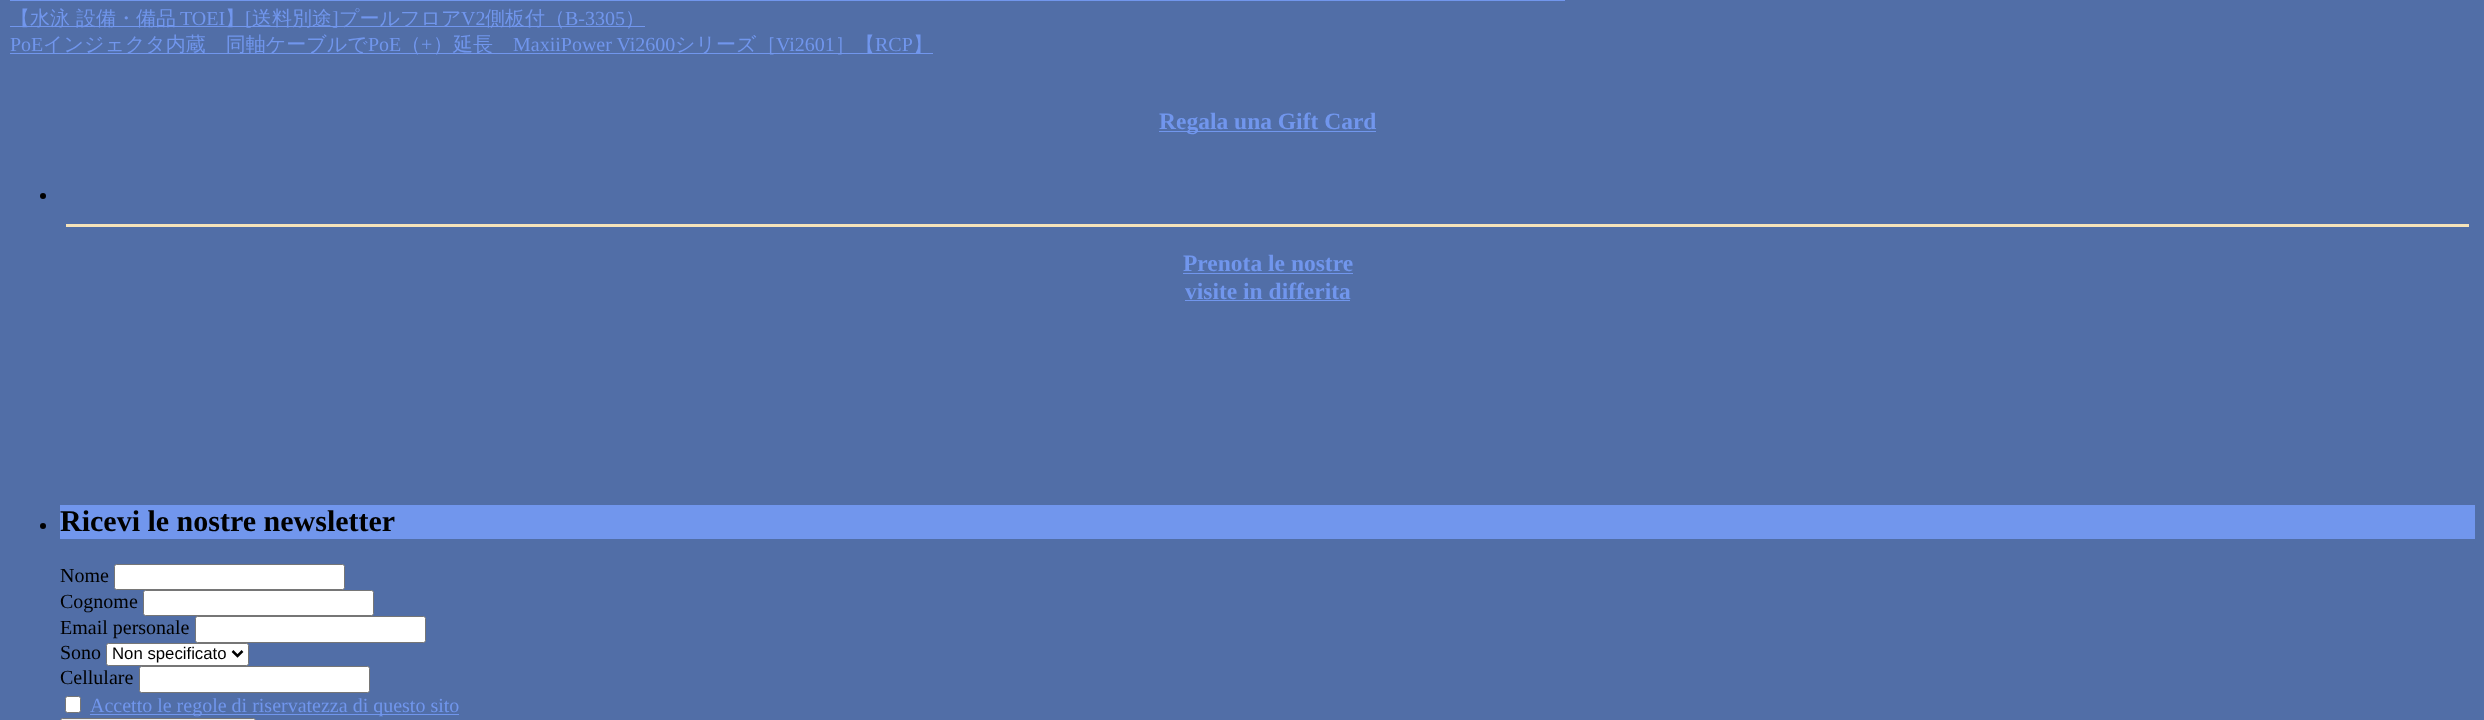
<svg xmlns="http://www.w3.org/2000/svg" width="2484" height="720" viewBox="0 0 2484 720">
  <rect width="100%" height="100%" fill="#516ea7"/>
  <rect x="10" y="0" width="1555" height="1" fill="#7196ed"/>
  <rect x="10" y="26" width="635" height="1" fill="#7196ed"/>
  <text x="10" y="25" font-family="WenQuanYi Zen Hei" font-size="20" font-weight="500" fill="#7196ed">【水泳 設備・備品</text>
  <text x="180" y="25" font-family="Liberation Serif" font-size="20" fill="#7196ed">TOEI</text>
  <text x="225" y="25" font-family="WenQuanYi Zen Hei" font-size="20" font-weight="500" fill="#7196ed">】</text>
  <text x="245" y="25" font-family="Liberation Serif" font-size="20" fill="#7196ed">[</text>
  <text x="252" y="25" font-family="WenQuanYi Zen Hei" font-size="20" font-weight="500" fill="#7196ed">送料別途</text>
  <text x="332" y="25" font-family="Liberation Serif" font-size="20" fill="#7196ed">]</text>
  <text x="339" y="25" font-family="WenQuanYi Zen Hei" font-size="20" font-weight="500" fill="#7196ed">プールフロア</text>
  <text x="461" y="25" font-family="Liberation Serif" font-size="20" fill="#7196ed">V2</text>
  <text x="485" y="25" font-family="WenQuanYi Zen Hei" font-size="20" font-weight="500" fill="#7196ed">側板付（</text>
  <text x="565" y="25" font-family="Liberation Serif" font-size="20" fill="#7196ed">B-3305</text>
  <text x="625" y="25" font-family="WenQuanYi Zen Hei" font-size="20" font-weight="500" fill="#7196ed">）</text>
  <text x="10" y="51" font-family="Liberation Serif" font-size="20" fill="#7196ed">PoE</text>
  <rect x="10" y="53" width="923" height="1" fill="#7196ed"/>
  <text x="43" y="51" font-family="WenQuanYi Zen Hei" font-size="20" font-weight="500" fill="#7196ed">インジェクタ内蔵　同軸ケーブルで</text>
  <text x="368" y="51" font-family="Liberation Serif" font-size="20" fill="#7196ed">PoE</text>
  <text x="401" y="51" font-family="WenQuanYi Zen Hei" font-size="20" font-weight="500" fill="#7196ed">（</text>
  <text x="421" y="51" font-family="Liberation Serif" font-size="20" fill="#7196ed">+</text>
  <text x="433" y="51" font-family="WenQuanYi Zen Hei" font-size="20" font-weight="500" fill="#7196ed">）延長</text>
  <text x="513" y="51" font-family="Liberation Serif" font-size="20" fill="#7196ed">MaxiiPower Vi2600</text>
  <text x="675" y="51" font-family="WenQuanYi Zen Hei" font-size="20" font-weight="500" fill="#7196ed">シリーズ［</text>
  <text x="776" y="51" font-family="Liberation Serif" font-size="20" fill="#7196ed">Vi2601</text>
  <text x="835" y="51" font-family="WenQuanYi Zen Hei" font-size="20" font-weight="500" fill="#7196ed">］【</text>
  <text x="875" y="51" font-family="Liberation Serif" font-size="20" fill="#7196ed">RCP</text>
  <text x="913" y="51" font-family="WenQuanYi Zen Hei" font-size="20" font-weight="500" fill="#7196ed">】</text>
  <circle cx="43" cy="196" r="3" fill="#000000"/>
  <rect x="1159" y="131" width="217" height="1" fill="#7196ed"/>
  <text x="1159" y="129" font-family="Liberation Serif" font-size="23.5" font-weight="bold" fill="#7196ed">Regala una Gift Card</text>
  <rect x="66" y="224" width="2403" height="3" fill="#f5e3ba"/>
  <text x="1183" y="271" font-family="Liberation Serif" font-size="23.5" font-weight="bold" fill="#7196ed">Prenota le nostre</text>
  <rect x="1183" y="273" width="170" height="1" fill="#7196ed"/>
  <text x="1185" y="299" font-family="Liberation Serif" font-size="23.5" font-weight="bold" fill="#7196ed">visite in differita</text>
  <rect x="1185" y="300" width="165" height="1" fill="#7196ed"/>
  <circle cx="43" cy="526" r="3" fill="#000000"/>
  <rect x="60" y="505" width="2415" height="34" fill="#7196ed"/>
  <text x="60" y="531" font-family="Liberation Serif" font-size="30" font-weight="bold" fill="#000000">Ricevi le nostre newsletter</text>
  <text x="60" y="582" font-family="Liberation Serif" font-size="20" fill="#000000">Nome</text>
  <rect x="114.5" y="564.5" width="230" height="25" rx="2" fill="#ffffff" stroke="#767676"/>
  <text x="60" y="608" font-family="Liberation Serif" font-size="20" fill="#000000">Cognome</text>
  <rect x="143.5" y="590.5" width="230" height="25" rx="2" fill="#ffffff" stroke="#767676"/>
  <text x="60" y="634" font-family="Liberation Serif" font-size="20" fill="#000000">Email personale</text>
  <rect x="195.5" y="616.5" width="230" height="26" rx="2" fill="#ffffff" stroke="#767676"/>
  <text x="60" y="659" font-family="Liberation Serif" font-size="20" fill="#000000">Sono</text>
  <rect x="106.5" y="643.5" width="142" height="22" rx="2" fill="#ffffff" stroke="#767676"/>
  <path d="M232.5 651L237.5 656L242.5 651" fill="none" stroke="#000000" stroke-width="2.5"/>
  <text x="112" y="659" font-family="Liberation Sans" font-size="16.75" fill="#000000">Non specificato</text>
  <text x="60" y="684" font-family="Liberation Serif" font-size="20" fill="#000000">Cellulare</text>
  <rect x="139.5" y="666.5" width="230" height="26" rx="2" fill="#ffffff" stroke="#767676"/>
  <rect x="65.5" y="696.5" width="15" height="16" rx="2" fill="#ffffff" stroke="#767676"/>
  <rect x="90" y="714" width="369" height="1" fill="#7196ed"/>
  <text x="90" y="712" font-family="Liberation Serif" font-size="20" fill="#7196ed">Accetto le regole di riservatezza di questo sito</text>
  <rect x="60.5" y="718.5" width="195" height="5" rx="2" fill="#efefef" stroke="#767676"/>
</svg>
